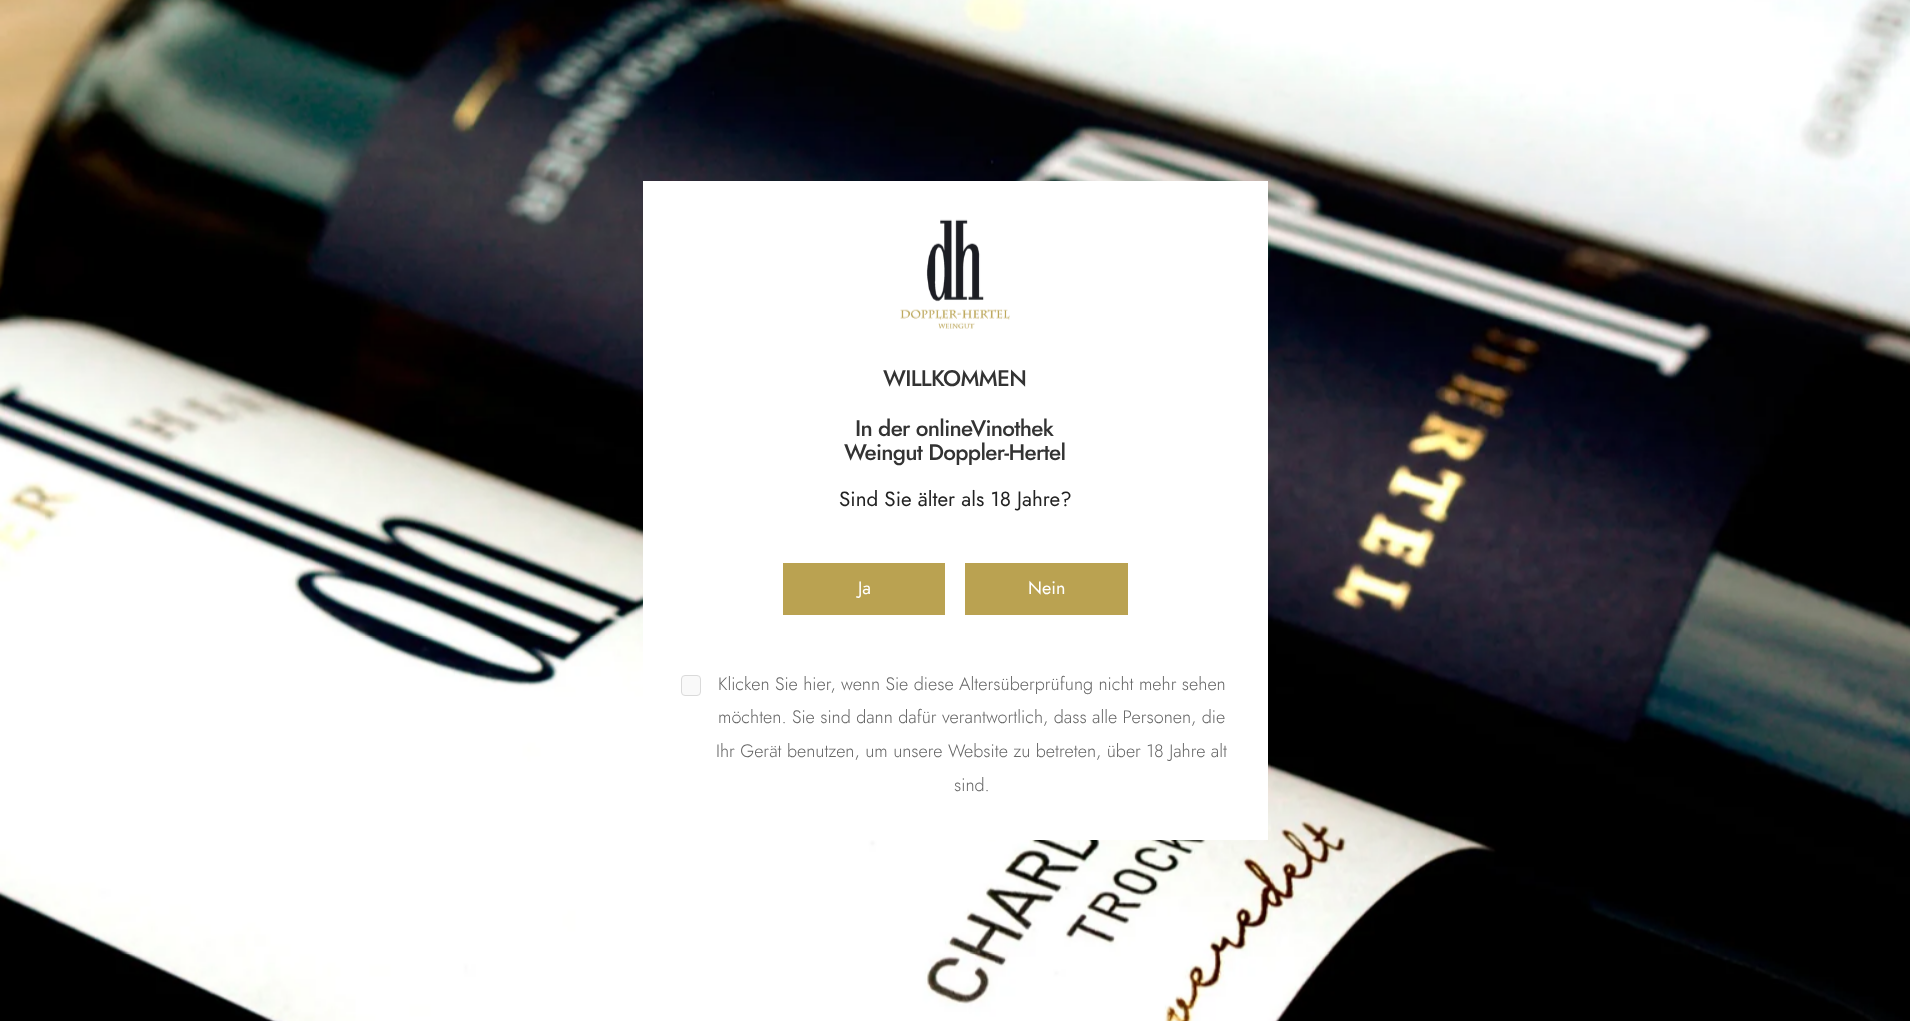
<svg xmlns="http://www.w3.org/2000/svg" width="1910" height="1021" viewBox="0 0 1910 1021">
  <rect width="100%" height="100%" fill="#ffffff"/>
  <image x="0" y="0" width="1910" height="1021" href="img1.png"/>
  <rect x="643" y="181" width="625" height="659" fill="#ffffff"/>
  <image x="900" y="219" width="110" height="110" href="img2.png"/>
  <text x="883" y="386" font-family="Jost" font-size="22.5" font-weight="500" letter-spacing="-0.7" fill="#333333">WILLKOMMEN</text>
  <text x="855" y="436" font-family="Jost" font-size="22.5" font-weight="500" letter-spacing="-0.7" fill="#333333">In der onlineVinothek</text>
  <text x="844" y="460" font-family="Jost" font-size="22.5" font-weight="500" letter-spacing="-0.7" fill="#333333">Weingut Doppler-Hertel</text>
  <text x="839" y="506" font-family="Jost" font-size="20.6" fill="#222222">Sind Sie älter als 18 Jahre?</text>
  <rect x="783" y="563" width="162" height="52" fill="#baa251"/>
  <text x="858" y="594" font-family="Jost" font-size="18.05" fill="#ffffff">Ja</text>
  <rect x="965" y="563" width="163" height="52" fill="#baa251"/>
  <text x="1028" y="594" font-family="Jost" font-size="18.05" fill="#ffffff">Nein</text>
  <rect x="681.5" y="675.5" width="19" height="20" rx="3.5" fill="#f9f9f9" stroke="#dadada"/>
  <text x="718" y="690" font-family="Jost" font-size="18.05" font-weight="300" fill="#666666">Klicken Sie hier, wenn Sie diese Altersüberprüfung nicht mehr sehen</text>
  <text x="718" y="723" font-family="Jost" font-size="18.05" font-weight="300" fill="#666666">möchten. Sie sind dann dafür verantwortlich, dass alle Personen, die</text>
  <text x="716" y="757" font-family="Jost" font-size="18.05" font-weight="300" fill="#666666">Ihr Gerät benutzen, um unsere Website zu betreten, über 18 Jahre alt</text>
  <text x="954" y="791" font-family="Jost" font-size="18.05" font-weight="300" fill="#666666">sind.</text>
</svg>
